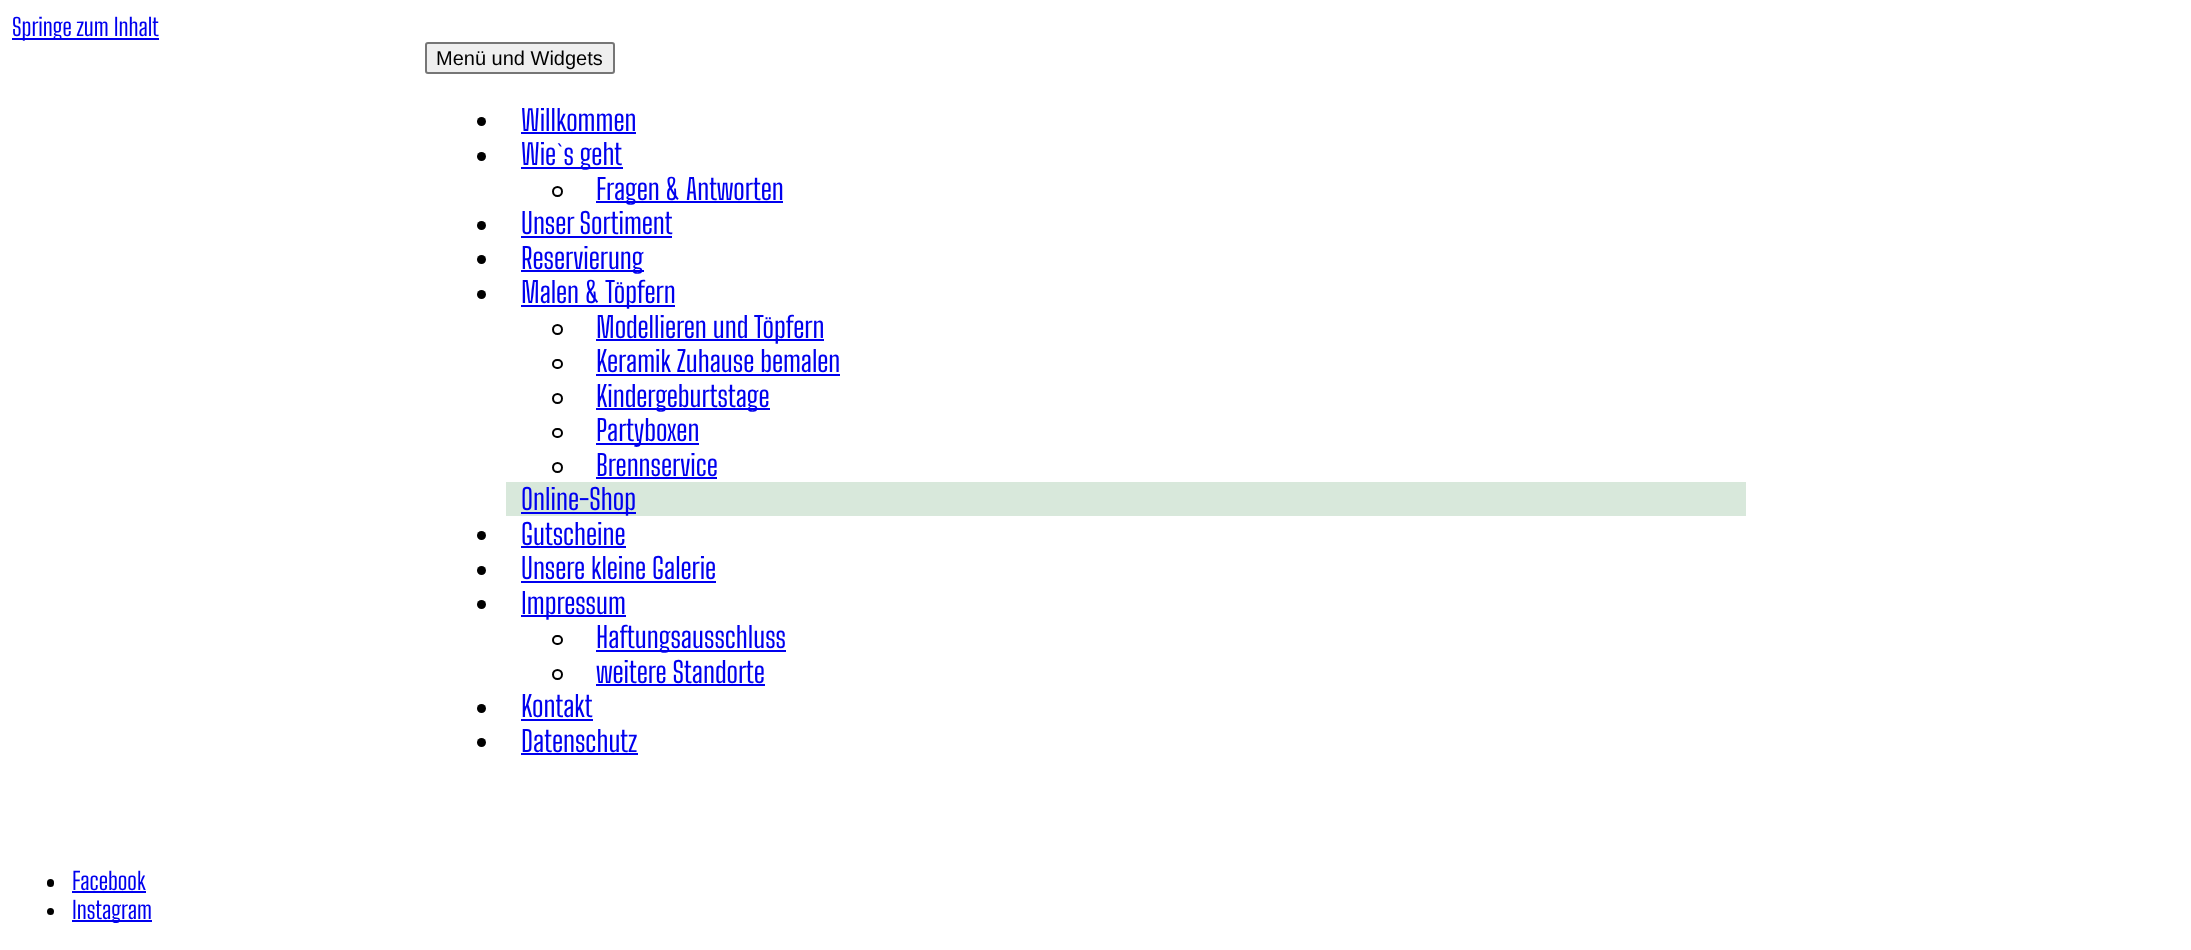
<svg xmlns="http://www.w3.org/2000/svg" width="2191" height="950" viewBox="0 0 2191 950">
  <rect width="100%" height="100%" fill="#ffffff"/>
  <rect x="12" y="38" width="147" height="2" fill="#0000ee"/>
  <text x="12" y="36" font-family="Big Shoulders Text" font-size="24" fill="#0000ee">Springe zum Inhalt</text>
  <rect x="426" y="43" width="188" height="30" rx="2" fill="#efefef" stroke="#767676" stroke-width="2"/>
  <text x="436" y="65" font-family="Liberation Sans" font-size="20" fill="#000000">Menü und Widgets</text>
  <circle cx="481.5" cy="121.5" r="4.5" fill="#000000"/>
  <text x="521" y="131" font-family="Big Shoulders Text" font-size="28.75" fill="#0000ee">Willkommen</text>
  <rect x="521" y="132" width="115" height="2" fill="#0000ee"/>
  <circle cx="481.5" cy="156.5" r="4.5" fill="#000000"/>
  <rect x="521" y="167" width="102" height="2" fill="#0000ee"/>
  <text x="521" y="165" font-family="Big Shoulders Text" font-size="28.75" fill="#0000ee">Wie`s geht</text>
  <circle cx="557.5" cy="191.5" r="4.5" fill="none" stroke="#000000" stroke-width="2"/>
  <rect x="596" y="201" width="187" height="2" fill="#0000ee"/>
  <text x="596" y="200" font-family="Big Shoulders Text" font-size="28.75" fill="#0000ee">Fragen &amp; Antworten</text>
  <circle cx="481.5" cy="225.5" r="4.5" fill="#000000"/>
  <text x="521" y="234" font-family="Big Shoulders Text" font-size="28.75" fill="#0000ee">Unser Sortiment</text>
  <rect x="521" y="236" width="151" height="2" fill="#0000ee"/>
  <circle cx="481.5" cy="259.5" r="4.5" fill="#000000"/>
  <rect x="521" y="270" width="123" height="2" fill="#0000ee"/>
  <text x="521" y="269" font-family="Big Shoulders Text" font-size="28.75" fill="#0000ee">Reservierung</text>
  <circle cx="481.5" cy="294.5" r="4.5" fill="#000000"/>
  <rect x="521" y="305" width="154" height="2" fill="#0000ee"/>
  <text x="521" y="303" font-family="Big Shoulders Text" font-size="28.75" fill="#0000ee">Malen &amp; Töpfern</text>
  <circle cx="557.5" cy="329.5" r="4.5" fill="none" stroke="#000000" stroke-width="2"/>
  <rect x="596" y="339" width="228" height="2" fill="#0000ee"/>
  <text x="596" y="338" font-family="Big Shoulders Text" font-size="28.75" fill="#0000ee">Modellieren und Töpfern</text>
  <rect x="553" y="360" width="9" height="8" rx="4" fill="none" stroke="#000000" stroke-width="2"/>
  <text x="596" y="372" font-family="Big Shoulders Text" font-size="28.75" fill="#0000ee">Keramik Zuhause bemalen</text>
  <rect x="596" y="374" width="244" height="2" fill="#0000ee"/>
  <circle cx="557.5" cy="398.5" r="4.5" fill="none" stroke="#000000" stroke-width="2"/>
  <rect x="596" y="408" width="174" height="2" fill="#0000ee"/>
  <text x="596" y="407" font-family="Big Shoulders Text" font-size="28.75" fill="#0000ee">Kindergeburtstage</text>
  <rect x="553" y="429" width="9" height="8" rx="4" fill="none" stroke="#000000" stroke-width="2"/>
  <rect x="596" y="443" width="103" height="2" fill="#0000ee"/>
  <text x="596" y="441" font-family="Big Shoulders Text" font-size="28.75" fill="#0000ee">Partyboxen</text>
  <circle cx="557.5" cy="467.5" r="4.5" fill="none" stroke="#000000" stroke-width="2"/>
  <text x="596" y="476" font-family="Big Shoulders Text" font-size="28.75" fill="#0000ee">Brennservice</text>
  <rect x="596" y="477" width="121" height="2" fill="#0000ee"/>
  <rect x="506" y="482" width="1240" height="34" fill="#d8e8db"/>
  <rect x="521" y="512" width="115" height="2" fill="#0000ee"/>
  <text x="521" y="510" font-family="Big Shoulders Text" font-size="28.75" fill="#0000ee">Online-Shop</text>
  <circle cx="481.5" cy="535.5" r="4.5" fill="#000000"/>
  <text x="521" y="545" font-family="Big Shoulders Text" font-size="28.75" fill="#0000ee">Gutscheine</text>
  <rect x="521" y="546" width="105" height="2" fill="#0000ee"/>
  <circle cx="481.5" cy="570.5" r="4.5" fill="#000000"/>
  <text x="521" y="579" font-family="Big Shoulders Text" font-size="28.75" fill="#0000ee">Unsere kleine Galerie</text>
  <rect x="521" y="581" width="195" height="2" fill="#0000ee"/>
  <circle cx="481.5" cy="604.5" r="4.5" fill="#000000"/>
  <rect x="521" y="615" width="105" height="2" fill="#0000ee"/>
  <text x="521" y="614" font-family="Big Shoulders Text" font-size="28.75" fill="#0000ee">Impressum</text>
  <rect x="553" y="636" width="9" height="8" rx="4" fill="none" stroke="#000000" stroke-width="2"/>
  <rect x="596" y="650" width="190" height="2" fill="#0000ee"/>
  <text x="596" y="648" font-family="Big Shoulders Text" font-size="28.75" fill="#0000ee">Haftungsausschluss</text>
  <circle cx="557.5" cy="674.5" r="4.5" fill="none" stroke="#000000" stroke-width="2"/>
  <text x="596" y="683" font-family="Big Shoulders Text" font-size="28.75" fill="#0000ee">weitere Standorte</text>
  <rect x="596" y="684" width="169" height="2" fill="#0000ee"/>
  <circle cx="481.5" cy="708.5" r="4.5" fill="#000000"/>
  <text x="521" y="717" font-family="Big Shoulders Text" font-size="28.75" fill="#0000ee">Kontakt</text>
  <rect x="521" y="719" width="72" height="2" fill="#0000ee"/>
  <circle cx="481.5" cy="742.5" r="4.5" fill="#000000"/>
  <text x="521" y="752" font-family="Big Shoulders Text" font-size="28.75" fill="#0000ee">Datenschutz</text>
  <rect x="521" y="753" width="117" height="2" fill="#0000ee"/>
  <rect x="47" y="879" width="7" height="8" rx="3.5" fill="#000000"/>
  <text x="72" y="890" font-family="Big Shoulders Text" font-size="24" fill="#0000ee">Facebook</text>
  <rect x="72" y="891" width="74" height="2" fill="#0000ee"/>
  <circle cx="50.5" cy="911.5" r="3.5" fill="#000000"/>
  <rect x="72" y="920" width="80" height="2" fill="#0000ee"/>
  <text x="72" y="919" font-family="Big Shoulders Text" font-size="24" fill="#0000ee">Instagram</text>
</svg>
